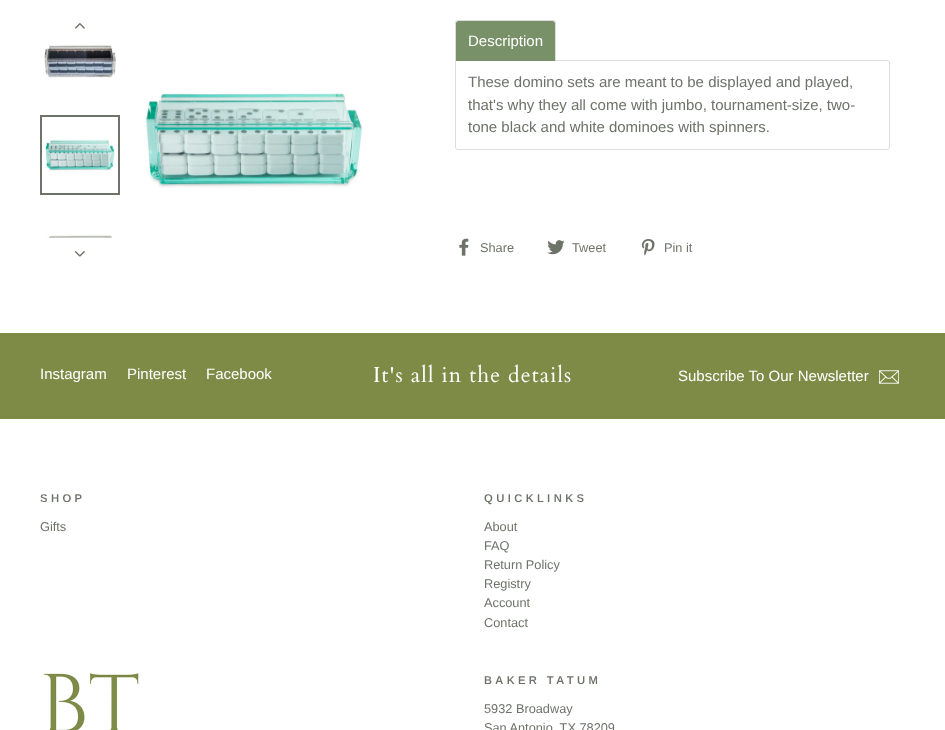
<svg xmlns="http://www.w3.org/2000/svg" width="945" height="730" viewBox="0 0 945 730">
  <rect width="100%" height="100%" fill="#ffffff"/>
  <image x="75" y="23" width="10" height="6" href="img1.png"/>
  <image x="44" y="45" width="74" height="33" href="img2.png"/>
  <rect x="41" y="116" width="78" height="78" fill="none" stroke="#6d7369" stroke-width="2"/>
  <image x="42" y="139" width="76" height="34" href="img3.png"/>
  <image x="42" y="233" width="76" height="5" href="img4.png"/>
  <image x="75" y="251" width="10" height="6" href="img5.png"/>
  <image x="146" y="93" width="217" height="95" href="img6.png"/>
  <path d="M455.5 60.5H887C888.5 60.5 889.5 61.5 889.5 63V147C889.5 148.5 888.5 149.5 887 149.5H458C456.5 149.5 455.5 148.5 455.5 147Z" fill="none" stroke="#dddddd"/>
  <path d="M458 21H553C554 21 555 22 555 23V61H456V23C456 22 457 21 458 21Z" fill="#799169"/>
  <path d="M458 20H553C555 20 556 21 556 23V61H455V23C455 21 456 20 458 20ZM458 21H553C554 21 555 22 555 23V61H456V23C456 22 457 21 458 21Z" fill="#dddddd" fill-rule="evenodd"/>
  <text x="468" y="46" font-family="Arimo" font-size="15" fill="#ffffff">Description</text>
  <text x="468" y="87" font-family="Arimo" font-size="15" fill="#6d7369">These domino sets are meant to be displayed and played,</text>
  <text x="468" y="110" font-family="Arimo" font-size="15" fill="#6d7369">that's why they all come with jumbo, tournament-size, two-</text>
  <text x="468" y="132" font-family="Arimo" font-size="15" fill="#6d7369">tone black and white dominoes with spinners.</text>
  <image x="459" y="238" width="10" height="18" href="img7.png"/>
  <text x="480" y="252" font-family="Arimo" font-size="12.75" fill="#6d7369">Share</text>
  <image x="547" y="240" width="18" height="15" href="img8.png"/>
  <text x="572" y="252" font-family="Arimo" font-size="12.75" fill="#6d7369">Tweet</text>
  <image x="641" y="239" width="14" height="17" href="img9.png"/>
  <text x="664" y="252" font-family="Arimo" font-size="12.75" fill="#6d7369">Pin it</text>
  <rect x="0" y="333" width="945" height="86" fill="#7e8b47"/>
  <text x="40" y="379" font-family="Arimo" font-size="15" fill="#ffffff">Instagram</text>
  <text x="127" y="379" font-family="Arimo" font-size="15" fill="#ffffff">Pinterest</text>
  <text x="206" y="379" font-family="Arimo" font-size="15" fill="#ffffff">Facebook</text>
  <text x="373" y="382" font-family="Cardo" font-size="21.75" letter-spacing="1.1" fill="#ffffff">It's all in the details</text>
  <text x="678" y="381" font-family="Arimo" font-size="15" fill="#ffffff">Subscribe To Our Newsletter</text>
  <image x="879" y="370" width="20" height="14" href="img10.png"/>
  <text x="40" y="502" font-family="Arimo" font-size="11.25" font-weight="600" letter-spacing="3.4" fill="#6d7369">SHOP</text>
  <text x="40" y="531" font-family="Arimo" font-size="12.75" fill="#6d7369">Gifts</text>
  <text x="484" y="502" font-family="Arimo" font-size="11.25" font-weight="600" letter-spacing="3.4" fill="#6d7369">QUICKLINKS</text>
  <text x="484" y="531" font-family="Arimo" font-size="12.75" fill="#6d7369">About</text>
  <text x="484" y="550" font-family="Arimo" font-size="12.75" fill="#6d7369">FAQ</text>
  <text x="484" y="569" font-family="Arimo" font-size="12.75" fill="#6d7369">Return Policy</text>
  <text x="484" y="588" font-family="Arimo" font-size="12.75" fill="#6d7369">Registry</text>
  <text x="484" y="607" font-family="Arimo" font-size="12.75" fill="#6d7369">Account</text>
  <text x="484" y="627" font-family="Arimo" font-size="12.75" fill="#6d7369">Contact</text>
  <image x="43" y="672" width="97" height="58" href="img11.png"/>
  <text x="484" y="684" font-family="Arimo" font-size="11.25" font-weight="600" letter-spacing="3.4" fill="#6d7369">BAKER TATUM</text>
  <text x="484" y="713" font-family="Arimo" font-size="12.75" fill="#6d7369">5932 Broadway</text>
  <text x="484" y="732" font-family="Arimo" font-size="12.75" fill="#6d7369">San Antonio, TX 78209</text>
</svg>
